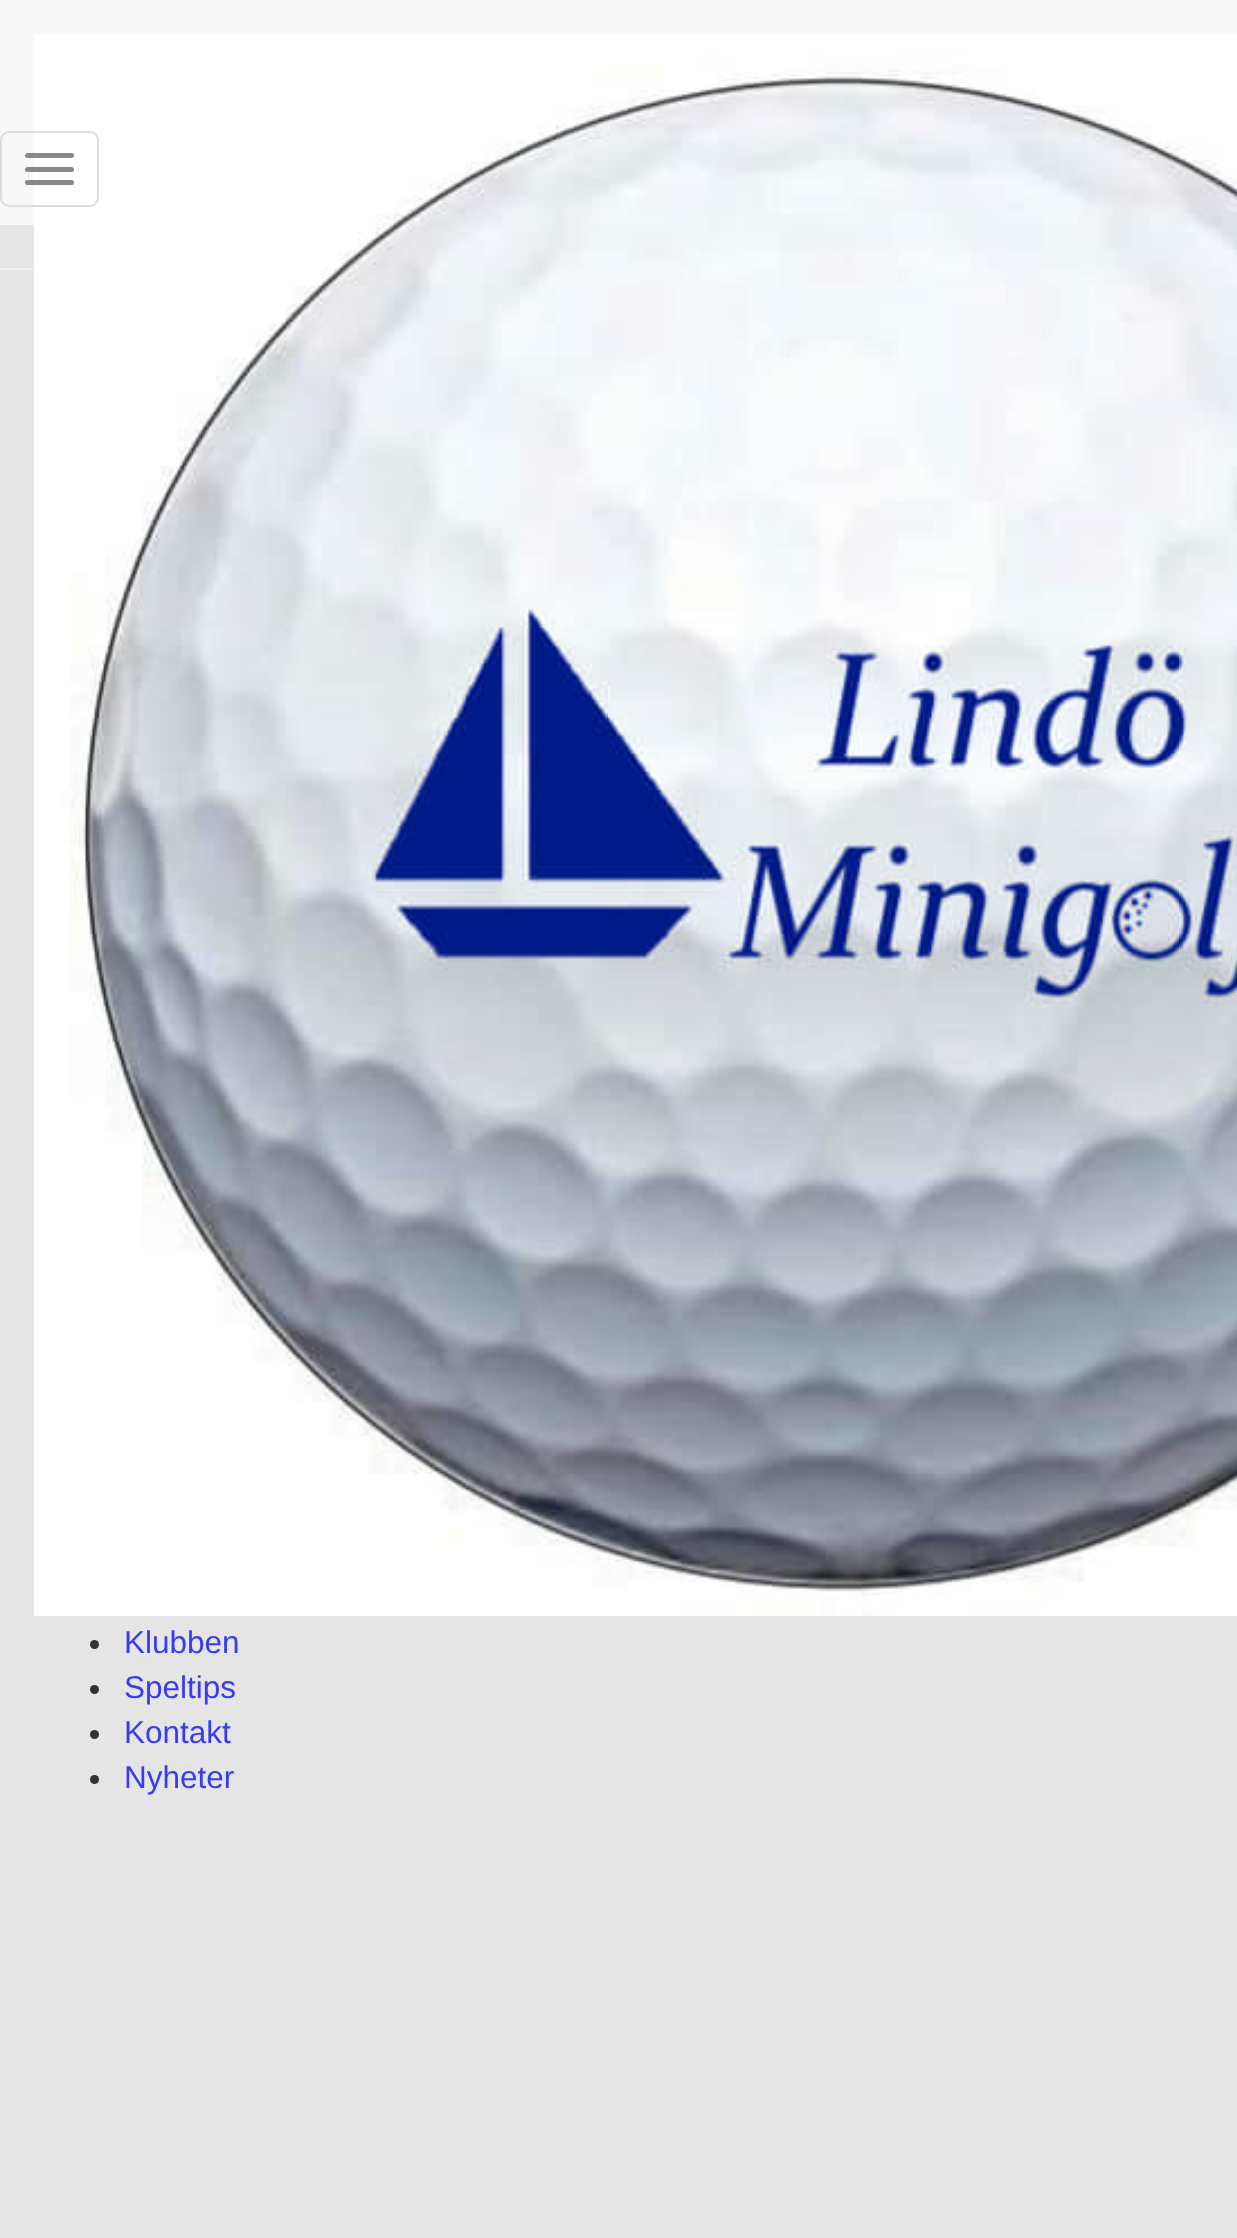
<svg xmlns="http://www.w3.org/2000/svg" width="1237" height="2238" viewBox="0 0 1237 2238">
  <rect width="100%" height="100%" fill="#e5e5e5"/>
  <rect x="0" y="0" width="1237" height="225" fill="#f8f8f8"/>
  <image x="34" y="34" width="1203" height="1582" href="img1.png"/>
  <rect x="1" y="132" width="97" height="74" rx="8" fill="none" stroke="#dddddd" stroke-width="2"/>
  <rect x="25" y="153" width="49" height="5" rx="2.5" fill="#888888"/>
  <rect x="25" y="167" width="49" height="5" rx="2.5" fill="#888888"/>
  <rect x="25" y="180" width="49" height="5" rx="2.5" fill="#888888"/>
  <rect x="0" y="268" width="34" height="2" fill="#eeeeee"/>
  <circle cx="94.5" cy="1644.5" r="4.5" fill="#333333"/>
  <text x="124" y="1653" font-family="Liberation Sans" font-size="31.5" fill="#373bf1">Klubben</text>
  <circle cx="94.5" cy="1689.5" r="4.5" fill="#333333"/>
  <text x="124" y="1698" font-family="Liberation Sans" font-size="31.5" fill="#373bf1">Speltips</text>
  <circle cx="94.5" cy="1734.5" r="4.5" fill="#333333"/>
  <text x="124" y="1743" font-family="Liberation Sans" font-size="31.5" fill="#373bf1">Kontakt</text>
  <circle cx="94.5" cy="1779.5" r="4.5" fill="#333333"/>
  <text x="124" y="1788" font-family="Liberation Sans" font-size="31.5" fill="#373bf1">Nyheter</text>
</svg>
